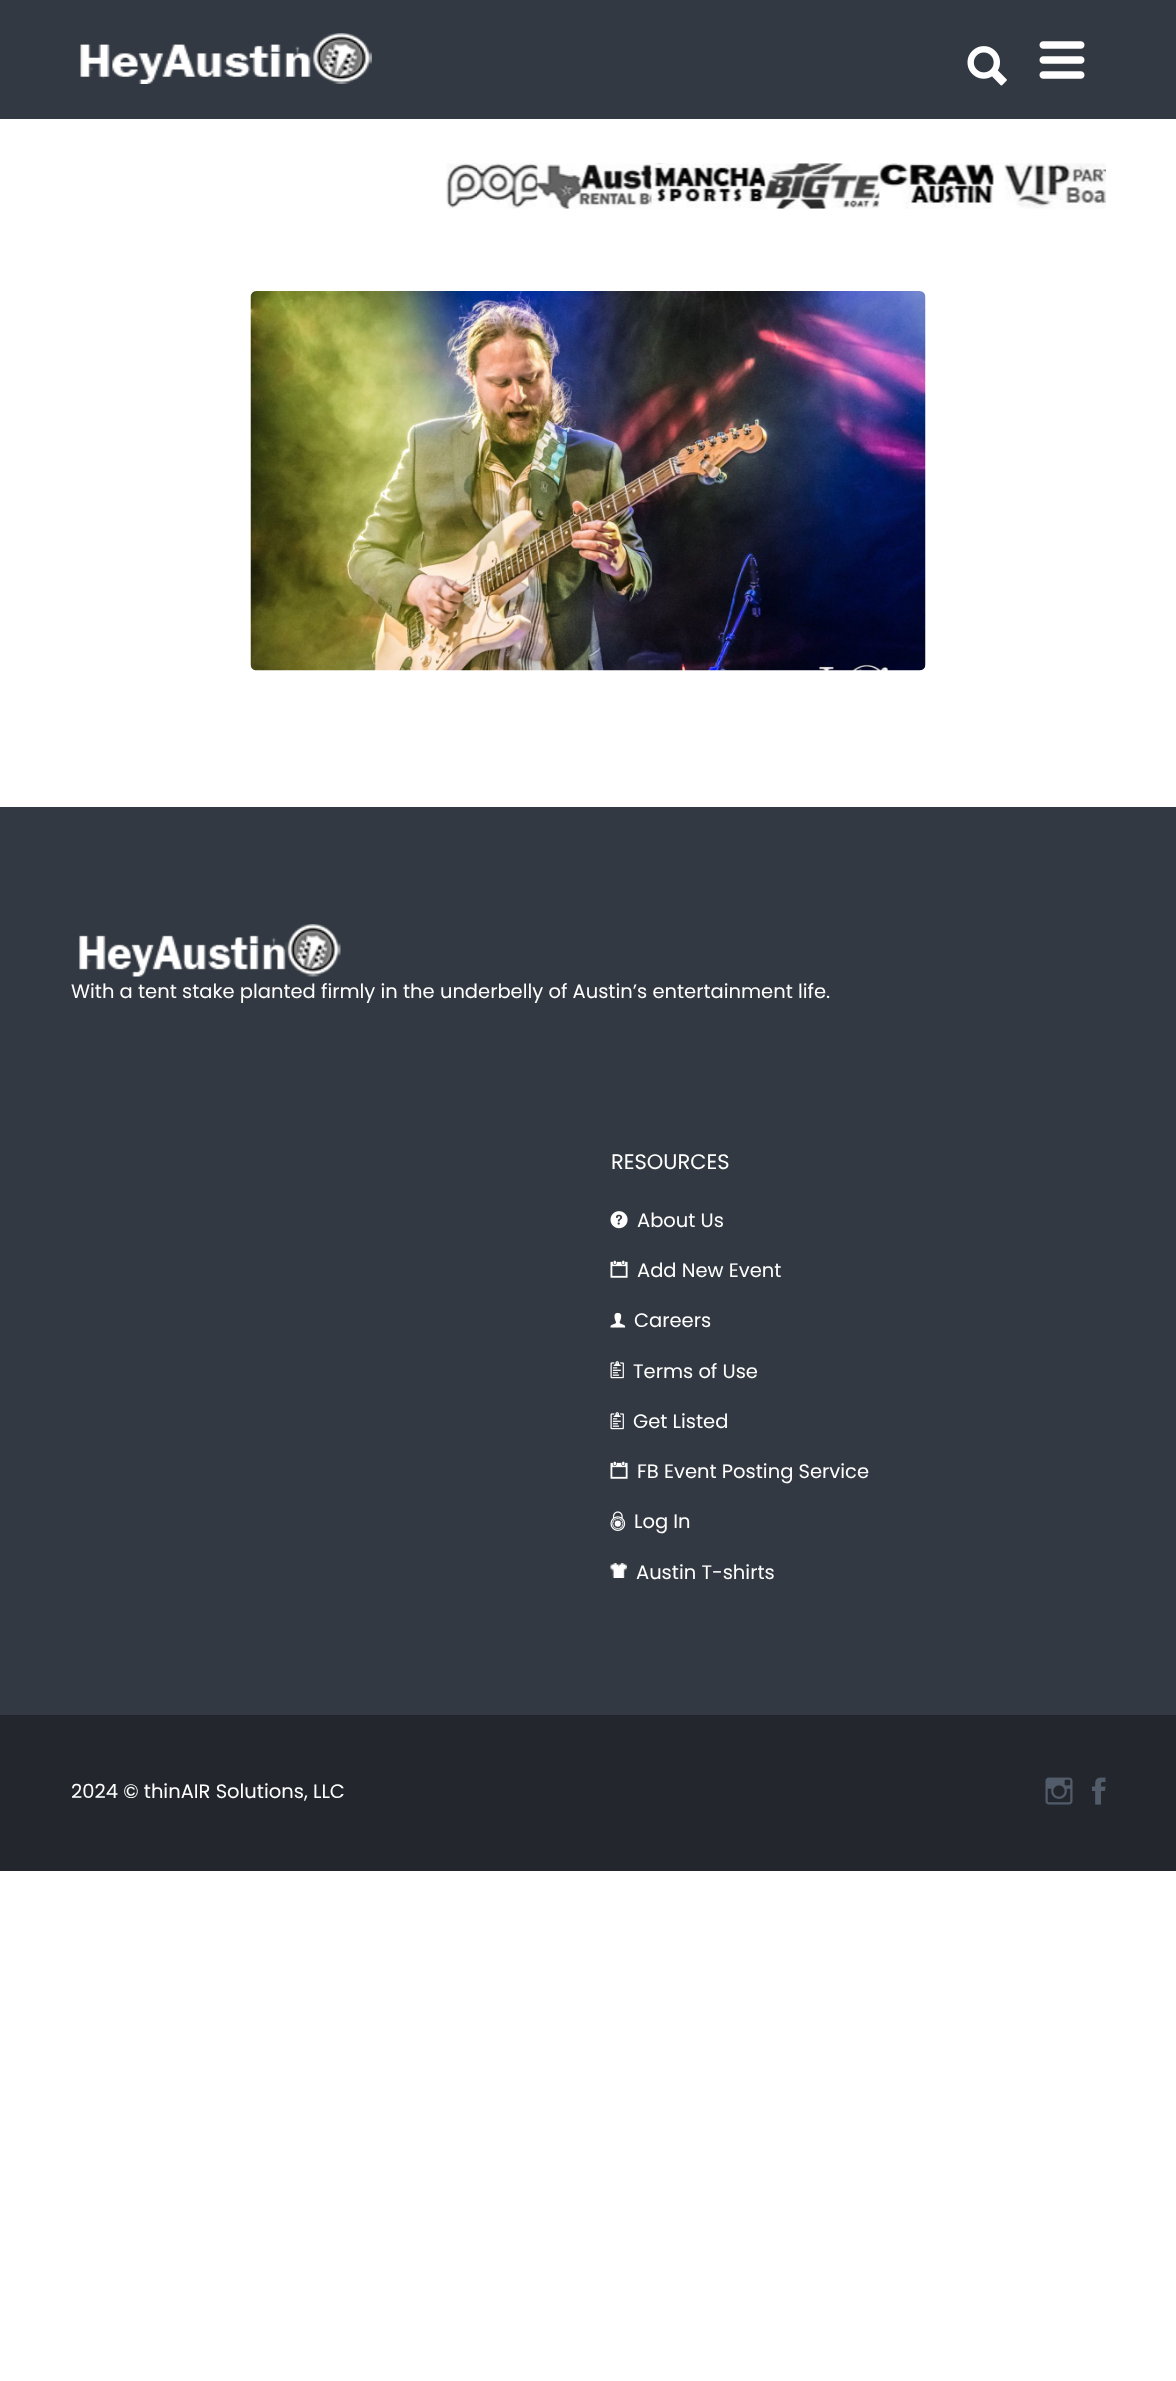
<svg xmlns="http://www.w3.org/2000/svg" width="1176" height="2381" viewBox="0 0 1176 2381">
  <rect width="100%" height="100%" fill="#ffffff"/>
  <rect x="0" y="0" width="1176" height="119" fill="#333943"/>
  <image x="80" y="33" width="292" height="51" href="img1.png"/>
  <image x="967" y="46" width="40" height="40" href="img2.png"/>
  <image x="1039" y="41" width="46" height="38" href="img3.png"/>
  <image x="446" y="163" width="107" height="46" href="img4.png"/>
  <image x="536" y="163" width="152" height="46" href="img5.png"/>
  <image x="650" y="163" width="152" height="46" href="img6.png"/>
  <image x="764" y="163" width="152" height="46" href="img7.png"/>
  <image x="878" y="163" width="152" height="46" href="img8.png"/>
  <image x="992" y="163" width="114" height="46" href="img9.png"/>
  <image x="250" y="291" width="676" height="380" href="img10.png"/>
  <rect x="0" y="807" width="1176" height="908" fill="#333942"/>
  <image x="79" y="924" width="262" height="53" href="img11.png"/>
  <text x="71" y="998" font-family="Poppins" font-size="19.5" fill="#ffffff">With a tent stake planted firmly in the underbelly of Austin’s entertainment life.</text>
  <text x="611" y="1169" font-family="Poppins" font-size="21" fill="#ffffff">RESOURCES</text>
  <image x="610" y="1211" width="18" height="18" href="img12.png"/>
  <text x="637" y="1227" font-family="Poppins" font-size="19.5" fill="#ffffff">About Us</text>
  <image x="610" y="1260" width="18" height="18" href="img13.png"/>
  <text x="637" y="1277" font-family="Poppins" font-size="19.5" fill="#ffffff">Add New Event</text>
  <image x="610" y="1312" width="16" height="16" href="img14.png"/>
  <text x="634" y="1327" font-family="Poppins" font-size="19.5" fill="#ffffff">Careers</text>
  <image x="610" y="1361" width="14" height="18" href="img15.png"/>
  <text x="633" y="1378" font-family="Poppins" font-size="19.5" fill="#ffffff">Terms of Use</text>
  <image x="610" y="1412" width="14" height="18" href="img15.png"/>
  <text x="633" y="1428" font-family="Poppins" font-size="19.5" fill="#ffffff">Get Listed</text>
  <image x="610" y="1461" width="18" height="18" href="img13.png"/>
  <text x="637" y="1478" font-family="Poppins" font-size="19.5" fill="#ffffff">FB Event Posting Service</text>
  <image x="610" y="1511" width="16" height="20" href="img16.png"/>
  <text x="634" y="1528" font-family="Poppins" font-size="19.5" fill="#ffffff">Log In</text>
  <image x="610" y="1563" width="17" height="15" href="img17.png"/>
  <text x="636" y="1579" font-family="Poppins" font-size="19.5" fill="#ffffff">Austin T-shirts</text>
  <rect x="0" y="1715" width="1176" height="156" fill="#23272d"/>
  <text x="71" y="1798" font-family="Poppins" font-size="19.5" fill="#ffffff">2024 © thinAIR Solutions, LLC</text>
  <image x="1045" y="1777" width="28" height="28" href="img18.png"/>
  <image x="1092" y="1777" width="14" height="28" href="img19.png"/>
</svg>
